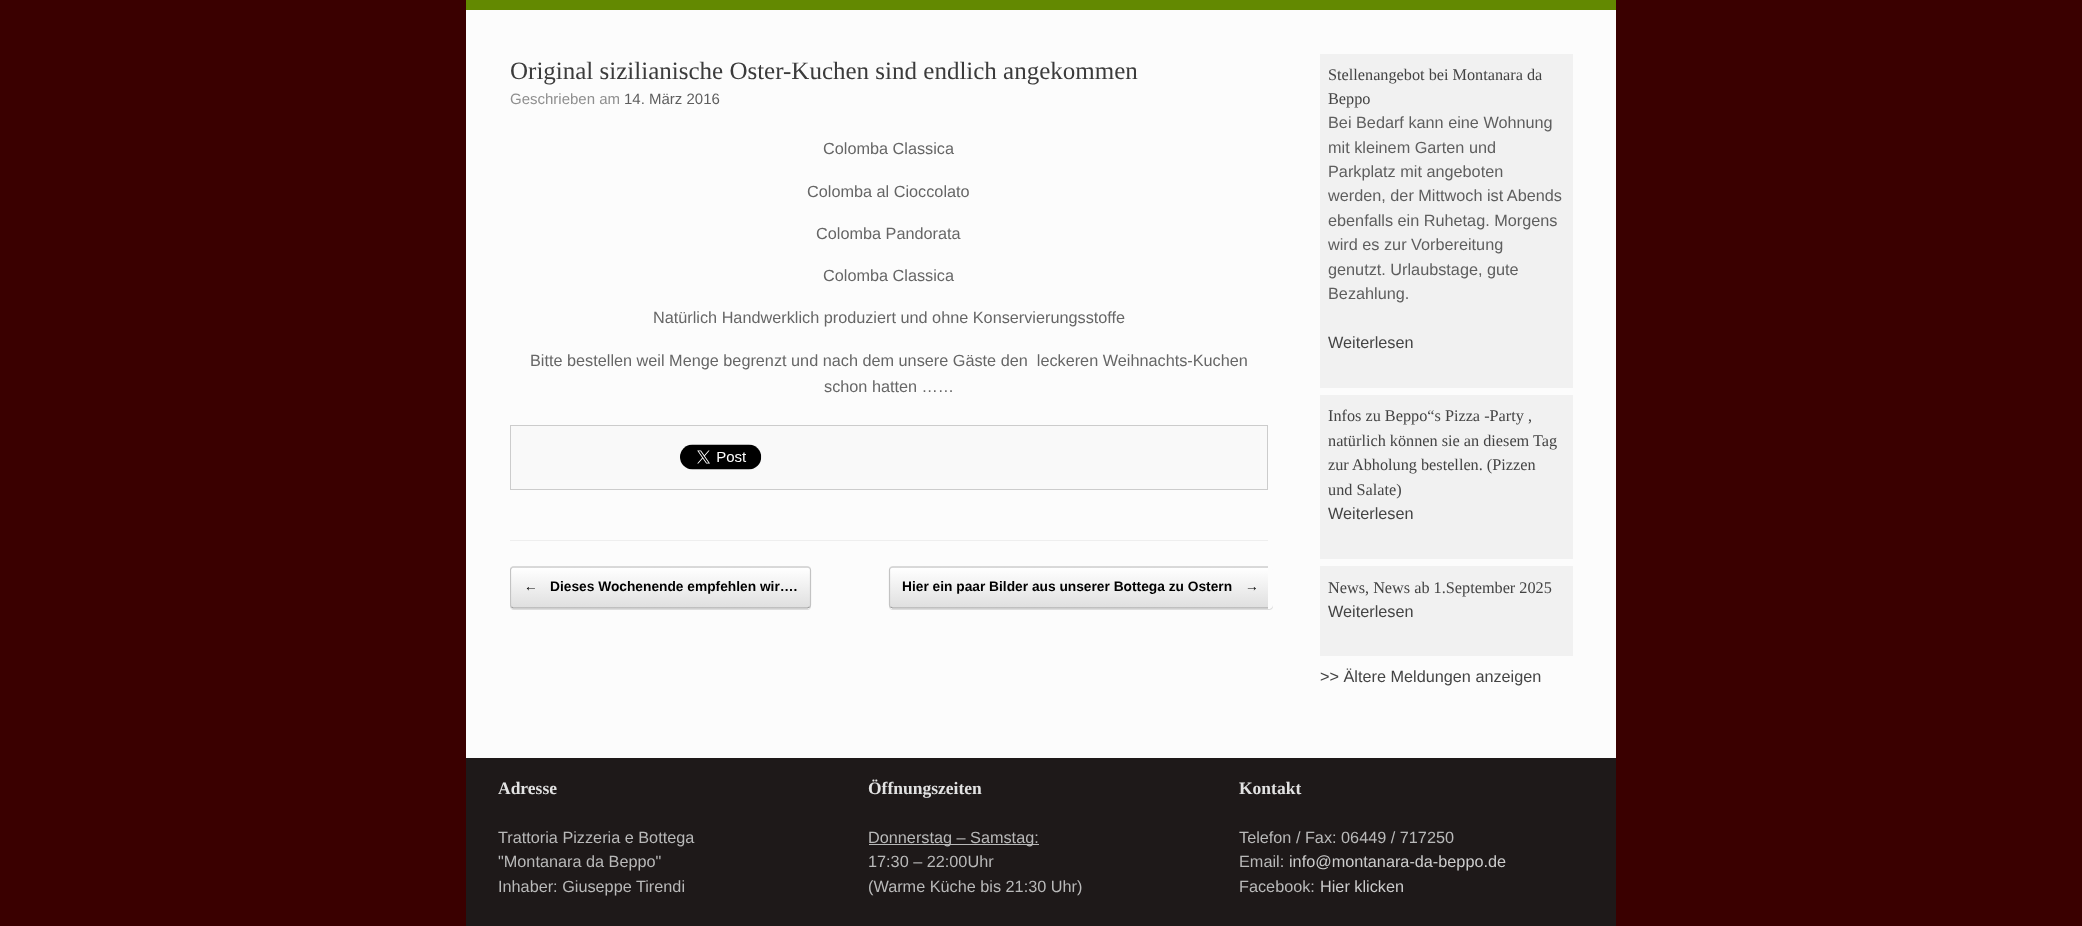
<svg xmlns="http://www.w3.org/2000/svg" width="2082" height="926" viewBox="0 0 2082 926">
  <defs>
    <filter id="blur1" x="-50%" y="-200%" width="200%" height="500%"><feGaussianBlur stdDeviation="0.5"/></filter>
    <clipPath id="clip1"><rect x="510" y="566" width="301" height="43" rx="4"/></clipPath>
    <linearGradient id="g1" gradientUnits="userSpaceOnUse" x1="511" y1="568" x2="511" y2="528"><stop offset="0" stop-color="#dfdfdf"/><stop offset="1" stop-color="#ffffff"/></linearGradient>
    <linearGradient id="g2" gradientUnits="userSpaceOnUse" x1="511" y1="608" x2="511" y2="568"><stop offset="0" stop-color="#dfdfdf"/><stop offset="1" stop-color="#ffffff"/></linearGradient>
    <linearGradient id="g3" gradientUnits="userSpaceOnUse" x1="511" y1="648" x2="511" y2="608"><stop offset="0" stop-color="#dfdfdf"/><stop offset="1" stop-color="#ffffff"/></linearGradient>
    <clipPath id="clip2"><rect x="510" y="566" width="758" height="43"/></clipPath>
    <clipPath id="clip3"><path d="M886 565H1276V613H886ZM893 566H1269C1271 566 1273 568 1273 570V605C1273 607 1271 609 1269 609H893C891 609 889 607 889 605V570C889 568 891 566 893 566Z" clip-rule="evenodd"/></clipPath>
    <clipPath id="clip4"><rect x="889" y="566" width="384" height="43" rx="4"/></clipPath>
    <linearGradient id="g4" gradientUnits="userSpaceOnUse" x1="890" y1="568" x2="890" y2="528"><stop offset="0" stop-color="#dfdfdf"/><stop offset="1" stop-color="#ffffff"/></linearGradient>
    <linearGradient id="g5" gradientUnits="userSpaceOnUse" x1="890" y1="608" x2="890" y2="568"><stop offset="0" stop-color="#dfdfdf"/><stop offset="1" stop-color="#ffffff"/></linearGradient>
    <linearGradient id="g6" gradientUnits="userSpaceOnUse" x1="890" y1="648" x2="890" y2="608"><stop offset="0" stop-color="#dfdfdf"/><stop offset="1" stop-color="#ffffff"/></linearGradient>
  </defs>
  <rect width="100%" height="100%" fill="#3a0000"/>
  <rect x="466" y="0" width="1150" height="10" fill="#638901"/>
  <rect x="466" y="10" width="1150" height="748" fill="#fcfcfc"/>
  <rect x="510" y="540" width="758" height="1" fill="#eeeeee"/>
  <text x="510" y="79" font-family="Liberation Serif" font-size="25" fill="#3b3b3b">Original sizilianische Oster-Kuchen sind endlich angekommen</text>
  <text x="510" y="104" font-family="Liberation Sans" font-size="15" fill="#8f8f8f">Geschrieben am</text>
  <text x="624" y="104" font-family="Liberation Sans" font-size="15" fill="#5e5e5e">14. März 2016</text>
  <text x="823" y="154" font-family="Liberation Sans" font-size="16.25" fill="#666666">Colomba Classica</text>
  <text x="807" y="197" font-family="Liberation Sans" font-size="16.25" fill="#666666">Colomba al Cioccolato</text>
  <text x="816" y="239" font-family="Liberation Sans" font-size="16.25" fill="#666666">Colomba Pandorata</text>
  <text x="823" y="281" font-family="Liberation Sans" font-size="16.25" fill="#666666">Colomba Classica</text>
  <text x="653" y="323" font-family="Liberation Sans" font-size="16.25" fill="#666666">Natürlich Handwerklich produziert und ohne Konservierungsstoffe</text>
  <text x="530" y="366" font-family="Liberation Sans" font-size="16.25" fill="#666666" xml:space="preserve">Bitte bestellen weil Menge begrenzt und nach dem unsere Gäste den  leckeren Weihnachts-Kuchen</text>
  <text x="824" y="392" font-family="Liberation Sans" font-size="16.25" fill="#666666">schon hatten ……</text>
  <rect x="510.5" y="425.5" width="757" height="64" fill="#f9f9f9" stroke="#cccccc"/>
  <image x="680" y="444" width="82" height="26" href="img1.png"/>
  <rect x="510" y="568" width="301" height="42" rx="4" fill="#000000" fill-opacity="0.12" filter="url(#blur1)"/>
  <g clip-path="url(#clip1)">
    <rect x="510" y="566" width="301" height="2" fill="url(#g1)"/>
    <rect x="510" y="568" width="301" height="40" fill="url(#g2)"/>
    <rect x="510" y="608" width="301" height="1" fill="url(#g3)"/>
  </g>
  <path d="M511.5 568L513 567H611.5H807.5L809.5 568" fill="none" stroke="#d2d2d2" stroke-width="1.2"/>
  <path d="M809.5 568C810.5 568.5 810.5 569 810.5 570V605C810.5 606 810.5 606.5 809.5 607" fill="none" stroke="#c3c3c3" stroke-width="1.2"/>
  <path d="M809.5 607L807.5 608H513L511.5 607" fill="none" stroke="#9f9f9f" stroke-width="1.2"/>
  <g clip-path="url(#clip2)">
    <path d="M511.5 607C511 606.5 510.5 606 510.5 605V570C510.5 569 511 568.5 511.5 568" fill="none" stroke="#c3c3c3" stroke-width="1.2"/>
  </g>
  <text x="524" y="591" font-family="Liberation Sans" font-size="13.75" font-weight="bold" fill="#000000">←</text>
  <text x="550" y="591" font-family="Liberation Sans" font-size="13.75" font-weight="bold" fill="#000000">Dieses Wochenende empfehlen wir….</text>
  <g clip-path="url(#clip3)">
    <rect x="889" y="568" width="384" height="42" rx="4" fill="#000000" fill-opacity="0.12" filter="url(#blur1)"/>
  </g>
  <g clip-path="url(#clip4)">
    <rect x="889" y="566" width="379" height="2" fill="url(#g4)"/>
    <rect x="889" y="568" width="379" height="40" fill="url(#g5)"/>
    <rect x="889" y="608" width="379" height="1" fill="url(#g6)"/>
  </g>
  <g clip-path="url(#clip2)">
    <path d="M890.5 568L892.5 567H1269L1271 568" fill="none" stroke="#d2d2d2" stroke-width="1.2"/>
    <path d="M1271 607L1269 608H892.5L890.5 607" fill="none" stroke="#9f9f9f" stroke-width="1.2"/>
  </g>
  <path d="M890.5 607C889.5 606.5 889.5 606 889.5 605V570C889.5 569 889.5 568.5 890.5 568" fill="none" stroke="#c3c3c3" stroke-width="1.2"/>
  <text x="902" y="591" font-family="Liberation Sans" font-size="13.75" font-weight="bold" fill="#000000">Hier ein paar Bilder aus unserer Bottega zu Ostern</text>
  <text x="1245" y="591" font-family="Liberation Sans" font-size="13.75" font-weight="bold" fill="#000000">→</text>
  <rect x="1320" y="54" width="253" height="334" fill="#f1f1f1"/>
  <text x="1328" y="80" font-family="Liberation Serif" font-size="16.25" fill="#444444">Stellenangebot bei Montanara da</text>
  <text x="1328" y="104" font-family="Liberation Serif" font-size="16.25" fill="#444444">Beppo</text>
  <text x="1328" y="128" font-family="Liberation Sans" font-size="16.25" fill="#5e5e5e">Bei Bedarf kann eine Wohnung</text>
  <text x="1328" y="153" font-family="Liberation Sans" font-size="16.25" fill="#5e5e5e">mit kleinem Garten und</text>
  <text x="1328" y="177" font-family="Liberation Sans" font-size="16.25" fill="#5e5e5e">Parkplatz mit angeboten</text>
  <text x="1328" y="201" font-family="Liberation Sans" font-size="16.25" fill="#5e5e5e">werden, der Mittwoch ist Abends</text>
  <text x="1328" y="226" font-family="Liberation Sans" font-size="16.25" fill="#5e5e5e">ebenfalls ein Ruhetag. Morgens</text>
  <text x="1328" y="250" font-family="Liberation Sans" font-size="16.25" fill="#5e5e5e">wird es zur Vorbereitung</text>
  <text x="1328" y="275" font-family="Liberation Sans" font-size="16.25" fill="#5e5e5e">genutzt. Urlaubstage, gute</text>
  <text x="1328" y="299" font-family="Liberation Sans" font-size="16.25" fill="#5e5e5e">Bezahlung.</text>
  <text x="1328" y="348" font-family="Liberation Sans" font-size="16.25" fill="#444444">Weiterlesen</text>
  <rect x="1320" y="395" width="253" height="164" fill="#f1f1f1"/>
  <text x="1328" y="421" font-family="Liberation Serif" font-size="16.25" fill="#444444">Infos zu Beppo“s Pizza -Party ,</text>
  <text x="1328" y="446" font-family="Liberation Serif" font-size="16.25" fill="#444444">natürlich können sie an diesem Tag</text>
  <text x="1328" y="470" font-family="Liberation Serif" font-size="16.25" fill="#444444">zur Abholung bestellen. (Pizzen</text>
  <text x="1328" y="495" font-family="Liberation Serif" font-size="16.25" fill="#444444">und Salate)</text>
  <text x="1328" y="519" font-family="Liberation Sans" font-size="16.25" fill="#444444">Weiterlesen</text>
  <rect x="1320" y="566" width="253" height="90" fill="#f1f1f1"/>
  <text x="1328" y="593" font-family="Liberation Serif" font-size="16.25" fill="#444444">News, News ab 1.September 2025</text>
  <text x="1328" y="617" font-family="Liberation Sans" font-size="16.25" fill="#444444">Weiterlesen</text>
  <text x="1320" y="682" font-family="Liberation Sans" font-size="16.25" fill="#444444">&gt;&gt; Ältere Meldungen anzeigen</text>
  <rect x="466" y="758" width="1150" height="168" fill="#1e1919"/>
  <text x="498" y="794" font-family="Liberation Serif" font-size="17.5" font-weight="bold" fill="#e2e2e2">Adresse</text>
  <text x="498" y="843" font-family="Liberation Sans" font-size="16.25" fill="#b9b9b9">Trattoria Pizzeria e Bottega</text>
  <text x="498" y="867" font-family="Liberation Sans" font-size="16.25" fill="#b9b9b9">"Montanara da Beppo"</text>
  <text x="498" y="892" font-family="Liberation Sans" font-size="16.25" fill="#b9b9b9">Inhaber: Giuseppe Tirendi</text>
  <text x="868" y="794" font-family="Liberation Serif" font-size="17.5" font-weight="bold" fill="#e2e2e2">Öffnungszeiten</text>
  <rect x="869" y="844" width="170" height="1" fill="#b9b9b9"/>
  <text x="868" y="843" font-family="Liberation Sans" font-size="16.25" fill="#b9b9b9">Donnerstag – Samstag:</text>
  <text x="868" y="867" font-family="Liberation Sans" font-size="16.25" fill="#b9b9b9">17:30 – 22:00Uhr</text>
  <text x="868" y="892" font-family="Liberation Sans" font-size="16.25" fill="#b9b9b9">(Warme Küche bis 21:30 Uhr)</text>
  <text x="1239" y="794" font-family="Liberation Serif" font-size="17.5" font-weight="bold" fill="#e2e2e2">Kontakt</text>
  <text x="1239" y="843" font-family="Liberation Sans" font-size="16.25" fill="#b9b9b9">Telefon / Fax: 06449 / 717250</text>
  <text x="1239" y="867" font-family="Liberation Sans" font-size="16.25" fill="#b9b9b9">Email:</text>
  <text x="1289" y="867" font-family="Liberation Sans" font-size="16.25" fill="#cccccc">info@montanara-da-beppo.de</text>
  <text x="1239" y="892" font-family="Liberation Sans" font-size="16.25" fill="#b9b9b9">Facebook:</text>
  <text x="1320" y="892" font-family="Liberation Sans" font-size="16.25" fill="#cccccc">Hier klicken</text>
</svg>
